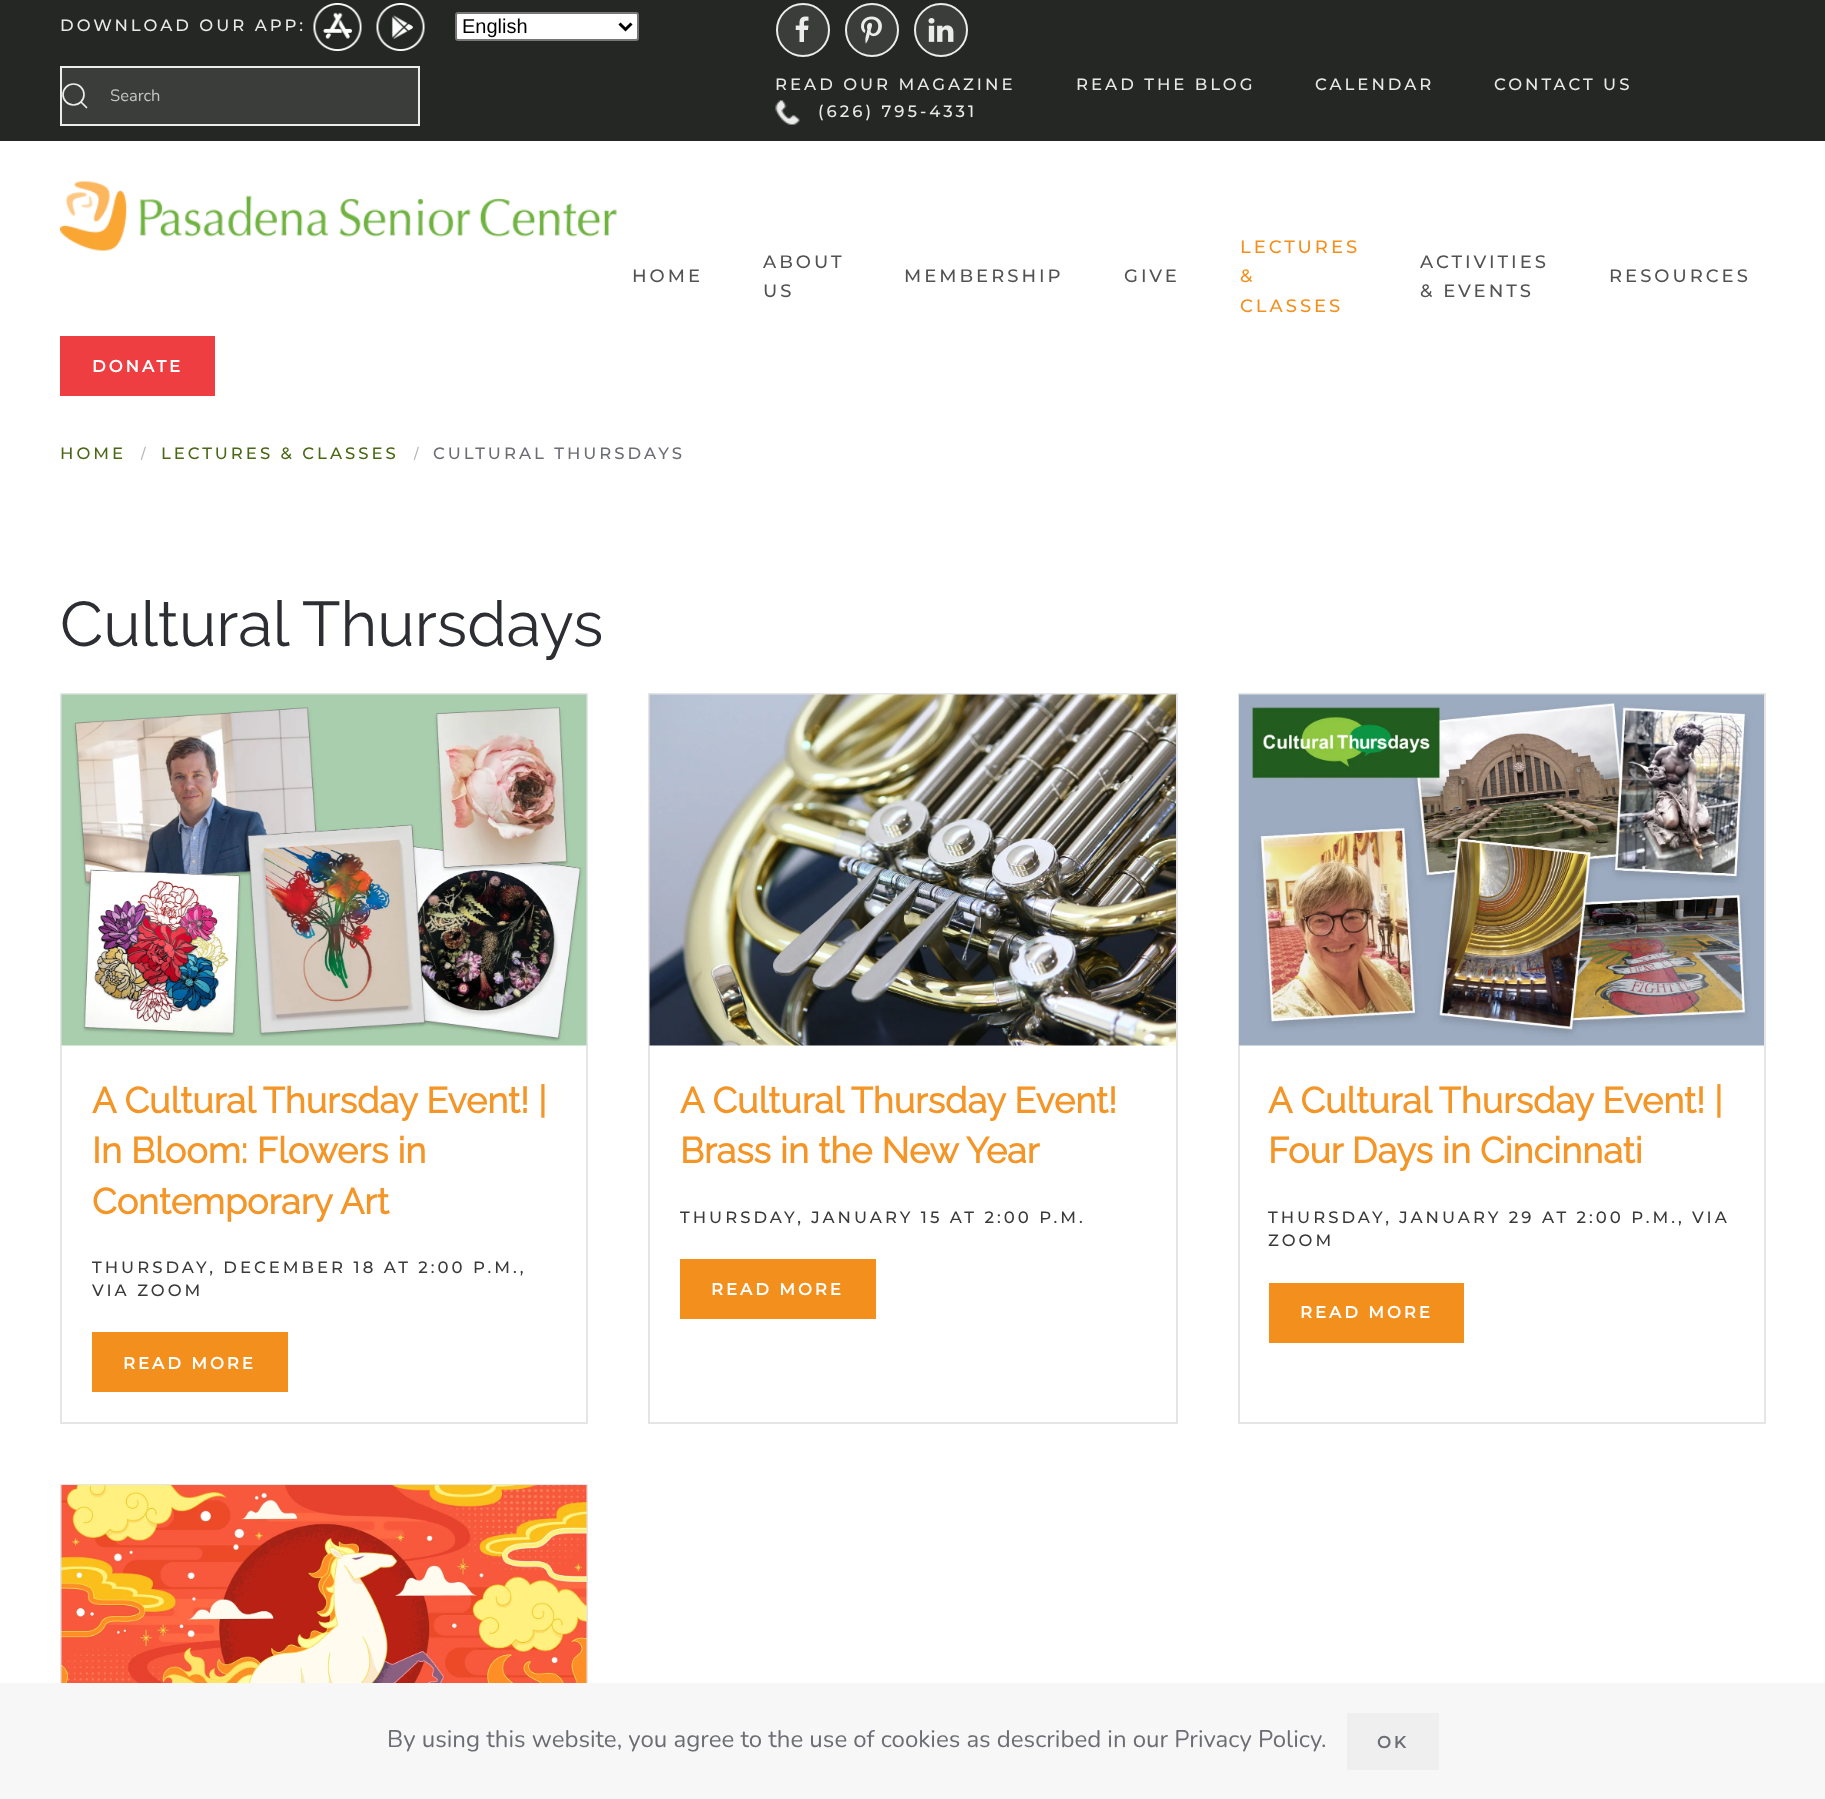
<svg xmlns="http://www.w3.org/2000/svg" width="1825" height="1799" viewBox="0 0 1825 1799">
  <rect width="100%" height="100%" fill="#ffffff"/>
  <rect x="0" y="0" width="1825" height="141" fill="#242724"/>
  <text x="60" y="31" font-family="Montserrat" font-size="16.5" font-weight="100" letter-spacing="3" fill="#e9e9e9">DOWNLOAD OUR APP:</text>
  <image x="313" y="3" width="49" height="48" href="img1.png"/>
  <image x="376" y="3" width="49" height="48" href="img2.png"/>
  <rect x="456" y="13" width="182" height="27" rx="2" fill="#ffffff" stroke="#767676" stroke-width="2"/>
  <path d="M619.5 23.5L625.5 29.5L631.5 23.5" fill="none" stroke="#000000" stroke-width="3"/>
  <text x="462" y="33" font-family="Liberation Sans" font-size="20" fill="#000000">English</text>
  <rect x="61" y="67" width="358" height="58" fill="#3a3d3a" stroke="#ebeceb" stroke-width="2"/>
  <circle cx="73.5" cy="94.5" r="10.5" fill="none" stroke="#ebeceb" stroke-width="1.7"/>
  <path d="M81 102L87 108Z" fill="none" stroke="#ffffff" stroke-opacity="0.9" stroke-width="1.7"/>
  <text x="110" y="101" font-family="Nunito" font-size="16.5" font-weight="200" fill="#c4c5c4">Search</text>
  <circle cx="803" cy="30" r="27" fill="#3a3d3a"/>
  <circle cx="803" cy="30" r="26" fill="none" stroke="#ffffff" stroke-opacity="0.9" stroke-width="2"/>
  <image x="795" y="16" width="14" height="26" href="img3.png"/>
  <circle cx="872" cy="30" r="27" fill="#3a3d3a"/>
  <circle cx="872" cy="30" r="26" fill="none" stroke="#ffffff" stroke-opacity="0.9" stroke-width="2"/>
  <image x="861" y="16" width="21" height="28" href="img4.png"/>
  <circle cx="941" cy="30" r="27" fill="#3a3d3a"/>
  <circle cx="941" cy="30" r="26" fill="none" stroke="#ffffff" stroke-opacity="0.9" stroke-width="2"/>
  <image x="928" y="18" width="26" height="24" href="img5.png"/>
  <text x="775" y="90" font-family="Montserrat" font-size="16.5" font-weight="100" letter-spacing="3" fill="#e9e9e9">READ OUR MAGAZINE</text>
  <text x="1076" y="90" font-family="Montserrat" font-size="16.5" font-weight="100" letter-spacing="3" fill="#e9e9e9">READ THE BLOG</text>
  <text x="1315" y="90" font-family="Montserrat" font-size="16.5" font-weight="100" letter-spacing="3" fill="#e9e9e9">CALENDAR</text>
  <text x="1494" y="90" font-family="Montserrat" font-size="16.5" font-weight="100" letter-spacing="3" fill="#e9e9e9">CONTACT US</text>
  <image x="775" y="100" width="25" height="25" href="img6.png"/>
  <text x="818" y="117" font-family="Montserrat" font-size="16.5" font-weight="100" letter-spacing="3" fill="#e9e9e9">(626) 795-4331</text>
  <text x="632" y="282" font-family="Montserrat" font-size="18" font-weight="100" letter-spacing="3" fill="#525253">HOME</text>
  <text x="763" y="268" font-family="Montserrat" font-size="18" font-weight="100" letter-spacing="3" fill="#525253">ABOUT</text>
  <text x="763" y="297" font-family="Montserrat" font-size="18" font-weight="100" letter-spacing="3" fill="#525253">US</text>
  <text x="904" y="282" font-family="Montserrat" font-size="18" font-weight="100" letter-spacing="3" fill="#525253">MEMBERSHIP</text>
  <text x="1124" y="282" font-family="Montserrat" font-size="18" font-weight="100" letter-spacing="3" fill="#525253">GIVE</text>
  <text x="1240" y="253" font-family="Montserrat" font-size="18" font-weight="100" letter-spacing="3" fill="#f3901d">LECTURES</text>
  <text x="1240" y="282" font-family="Montserrat" font-size="18" font-weight="100" letter-spacing="3" fill="#f3901d">&amp;</text>
  <text x="1240" y="312" font-family="Montserrat" font-size="18" font-weight="100" letter-spacing="3" fill="#f3901d">CLASSES</text>
  <text x="1420" y="268" font-family="Montserrat" font-size="18" font-weight="100" letter-spacing="3" fill="#525253">ACTIVITIES</text>
  <text x="1420" y="297" font-family="Montserrat" font-size="18" font-weight="100" letter-spacing="3" fill="#525253">&amp; EVENTS</text>
  <text x="1609" y="282" font-family="Montserrat" font-size="18" font-weight="100" letter-spacing="3" fill="#525253">RESOURCES</text>
  <image x="60" y="181" width="557" height="70" href="img7.png"/>
  <rect x="60" y="336" width="155" height="60" fill="#ef3e42"/>
  <text x="92" y="372" font-family="Montserrat" font-size="16.5" font-weight="bold" letter-spacing="3" fill="#ffffff">DONATE</text>
  <text x="60" y="459" font-family="Montserrat" font-size="16.5" font-weight="100" letter-spacing="3" fill="#496715">HOME</text>
  <text x="141" y="459" font-family="Nunito" font-size="16.5" font-weight="200" fill="#b4b5ba">/</text>
  <text x="161" y="459" font-family="Montserrat" font-size="16.5" font-weight="100" letter-spacing="3" fill="#496715">LECTURES &amp; CLASSES</text>
  <text x="414" y="459" font-family="Nunito" font-size="16.5" font-weight="200" fill="#b4b5ba">/</text>
  <text x="433" y="459" font-family="Montserrat" font-size="16.5" font-weight="100" letter-spacing="3" fill="#6c6d74">CULTURAL THURSDAYS</text>
  <text x="60" y="646" font-family="Raleway" font-size="63" font-weight="100" fill="#2d2e33">Cultural Thursdays</text>
  <rect x="61" y="694" width="526" height="729" fill="none" stroke="#e5e5e7" stroke-width="2"/>
  <image x="61" y="694" width="526" height="352" href="img8.png"/>
  <text x="92" y="1113" font-family="Raleway" font-size="36" font-weight="bold" fill="#f49527">A Cultural Thursday Event! |</text>
  <text x="92" y="1163" font-family="Raleway" font-size="36" font-weight="bold" fill="#f49527">In Bloom: Flowers in</text>
  <text x="92" y="1214" font-family="Raleway" font-size="36" font-weight="bold" fill="#f49527">Contemporary Art</text>
  <text x="92" y="1273" font-family="Montserrat" font-size="16.5" font-weight="100" letter-spacing="3" fill="#3a3a3a">THURSDAY, DECEMBER 18 AT 2:00 P.M.,</text>
  <text x="92" y="1296" font-family="Montserrat" font-size="16.5" font-weight="100" letter-spacing="3" fill="#3a3a3a">VIA ZOOM</text>
  <rect x="92" y="1332" width="196" height="60" fill="#f3901d"/>
  <text x="123" y="1369" font-family="Montserrat" font-size="16.5" font-weight="bold" letter-spacing="3" fill="#ffffff">READ MORE</text>
  <rect x="649" y="694" width="528" height="729" fill="none" stroke="#e5e5e7" stroke-width="2"/>
  <image x="649" y="694" width="527" height="352" href="img9.png"/>
  <text x="680" y="1113" font-family="Raleway" font-size="36" font-weight="bold" fill="#f49527">A Cultural Thursday Event!</text>
  <text x="680" y="1163" font-family="Raleway" font-size="36" font-weight="bold" fill="#f49527">Brass in the New Year</text>
  <text x="680" y="1223" font-family="Montserrat" font-size="16.5" font-weight="100" letter-spacing="3" fill="#3a3a3a">THURSDAY, JANUARY 15 AT 2:00 P.M.</text>
  <rect x="680" y="1259" width="196" height="60" fill="#f3901d"/>
  <text x="711" y="1295" font-family="Montserrat" font-size="16.5" font-weight="bold" letter-spacing="3" fill="#ffffff">READ MORE</text>
  <rect x="1239" y="694" width="526" height="729" fill="none" stroke="#e5e5e7" stroke-width="2"/>
  <image x="1239" y="694" width="525" height="352" href="img10.png"/>
  <text x="1268" y="1113" font-family="Raleway" font-size="36" font-weight="bold" fill="#f49527">A Cultural Thursday Event! |</text>
  <text x="1268" y="1163" font-family="Raleway" font-size="36" font-weight="bold" fill="#f49527">Four Days in Cincinnati</text>
  <text x="1268" y="1223" font-family="Montserrat" font-size="16.5" font-weight="100" letter-spacing="3" fill="#3a3a3a">THURSDAY, JANUARY 29 AT 2:00 P.M., VIA</text>
  <text x="1268" y="1246" font-family="Montserrat" font-size="16.5" font-weight="100" letter-spacing="3" fill="#3a3a3a">ZOOM</text>
  <rect x="1269" y="1283" width="195" height="60" fill="#f3901d"/>
  <text x="1300" y="1318" font-family="Montserrat" font-size="16.5" font-weight="bold" letter-spacing="3" fill="#ffffff">READ MORE</text>
  <rect x="61" y="1485" width="526" height="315" fill="none" stroke="#e5e5e7" stroke-width="2"/>
  <image x="61" y="1485" width="526" height="198" href="img11.png"/>
  <rect x="0" y="1683" width="1825" height="116" fill="#f7f7f7"/>
  <text x="387" y="1747" font-family="Nunito" font-size="24" font-weight="200" fill="#6c6d74">By using this website, you agree to the use of cookies as described in our Privacy Policy.</text>
  <rect x="1347" y="1713" width="92" height="57" fill="#efefef"/>
  <text x="1377" y="1748" font-family="Montserrat" font-size="16.5" font-weight="bold" letter-spacing="3" fill="#6c6d74">OK</text>
</svg>
